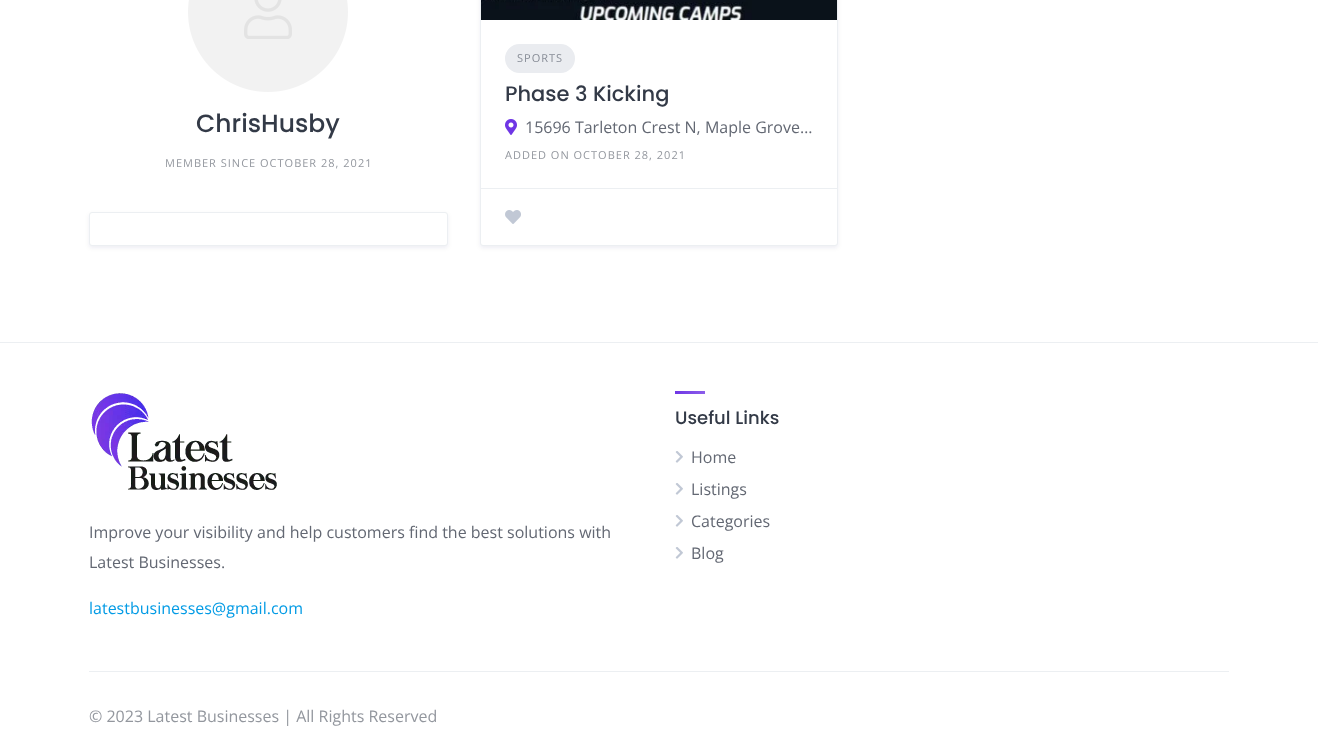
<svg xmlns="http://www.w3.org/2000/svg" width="1318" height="747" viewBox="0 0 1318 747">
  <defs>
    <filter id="blur1" x="-50%" y="-200%" width="200%" height="500%"><feGaussianBlur stdDeviation="2"/></filter>
    <linearGradient id="g1" gradientUnits="userSpaceOnUse" x1="675" y1="393" x2="705" y2="393"><stop offset="0" stop-color="#6f36e5"/><stop offset="1" stop-color="#8c5eea"/></linearGradient>
  </defs>
  <rect width="100%" height="100%" fill="#ffffff"/>
  <image x="188" y="0" width="160" height="92" href="img1.png"/>
  <text x="196" y="132" font-family="Poppins" font-size="25" font-weight="500" fill="#333a47">ChrisHusby</text>
  <text x="165" y="167" font-family="Open Sans" font-size="11" letter-spacing="1" fill="#93979e">MEMBER SINCE OCTOBER 28, 2021</text>
  <rect x="89" y="214" width="359" height="34" rx="3" fill="#072456" fill-opacity="0.07" filter="url(#blur1)"/>
  <rect x="89.5" y="212.5" width="358" height="33" rx="2.5" fill="#ffffff" stroke="#eceff2"/>
  <rect x="480" y="-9" width="358" height="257" rx="3" fill="#072456" fill-opacity="0.07" filter="url(#blur1)"/>
  <rect x="480.5" y="-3.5" width="357" height="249" rx="2.5" fill="#ffffff" stroke="#eceff2"/>
  <image x="481" y="0" width="356" height="20" href="img2.png"/>
  <rect x="505" y="44" width="70" height="29" rx="14.5" fill="#eaecf0"/>
  <text x="517" y="62" font-family="Open Sans" font-size="11" letter-spacing="1" fill="#878c96">SPORTS</text>
  <text x="505" y="101" font-family="Poppins" font-size="21" font-weight="500" fill="#333a47">Phase 3 Kicking</text>
  <image x="505" y="119" width="12" height="16" href="img3.png"/>
  <text x="525" y="133" font-family="Open Sans" font-size="16" fill="#636873">15696 Tarleton Crest N, Maple Grove…</text>
  <text x="505" y="159" font-family="Open Sans" font-size="11" letter-spacing="1" fill="#93979e">ADDED ON OCTOBER 28, 2021</text>
  <rect x="481" y="188" width="356" height="1" fill="#eceff2"/>
  <image x="505" y="210" width="16" height="14" href="img4.png"/>
  <rect x="0" y="342" width="1318" height="1" fill="#eceff2"/>
  <rect x="89" y="671" width="1140" height="1" fill="#eceff2"/>
  <image x="91" y="393" width="186" height="97" href="img5.png"/>
  <text x="89" y="538" font-family="Open Sans" font-size="16" fill="#636873">Improve your visibility and help customers find the best solutions with</text>
  <text x="89" y="568" font-family="Open Sans" font-size="16" fill="#636873">Latest Businesses.</text>
  <text x="89" y="614" font-family="Open Sans" font-size="16" fill="#039be5">latestbusinesses@gmail.com</text>
  <rect x="675" y="391" width="30" height="3" fill="url(#g1)"/>
  <text x="675" y="424" font-family="Poppins" font-size="18" font-weight="500" fill="#333a47">Useful Links</text>
  <image x="675" y="451" width="8" height="12" href="img6.png"/>
  <text x="691" y="463" font-family="Open Sans" font-size="16" fill="#636873">Home</text>
  <image x="675" y="483" width="8" height="12" href="img6.png"/>
  <text x="691" y="495" font-family="Open Sans" font-size="16" fill="#636873">Listings</text>
  <image x="675" y="515" width="8" height="12" href="img6.png"/>
  <text x="691" y="527" font-family="Open Sans" font-size="16" fill="#636873">Categories</text>
  <image x="675" y="547" width="8" height="12" href="img6.png"/>
  <text x="691" y="559" font-family="Open Sans" font-size="16" fill="#636873">Blog</text>
  <text x="89" y="722" font-family="Open Sans" font-size="16" fill="#93979e">© 2023 Latest Businesses | All Rights Reserved</text>
</svg>
